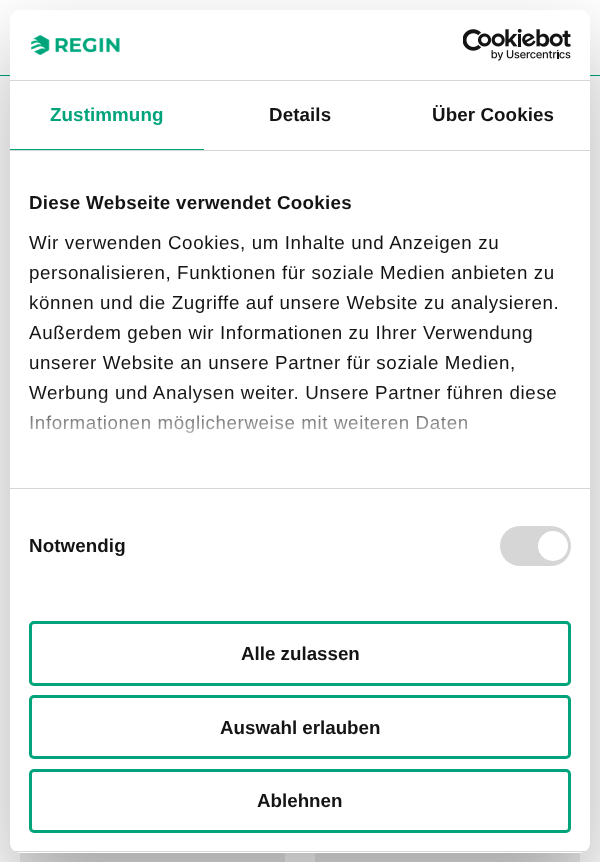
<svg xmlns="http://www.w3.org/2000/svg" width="600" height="862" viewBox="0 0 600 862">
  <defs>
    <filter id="blur1" x="-50%" y="-200%" width="200%" height="500%"><feGaussianBlur stdDeviation="42.5"/></filter>
    <linearGradient id="g1" gradientUnits="userSpaceOnUse" x1="292" y1="488" x2="292" y2="394"><stop offset="0" stop-color="#ffffff"/><stop offset="0.5" stop-color="#ffffff" stop-opacity="0.8"/><stop offset="1" stop-color="#ffffff" stop-opacity="0"/></linearGradient>
    <clipPath id="clip1"><rect x="10" y="10" width="580" height="843" rx="10"/></clipPath>
  </defs>
  <rect width="100%" height="100%" fill="#ffffff"/>
  <rect x="0" y="75" width="600" height="1" fill="#00a37a"/>
  <rect x="20" y="850" width="265" height="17" rx="5" fill="#ecedec"/>
  <rect x="315" y="850" width="265" height="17" rx="5" fill="#ecedec"/>
  <rect x="10" y="50" width="580" height="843" rx="10" fill="#000000" fill-opacity="0.3" filter="url(#blur1)"/>
  <rect x="10" y="10" width="580" height="843" rx="10" fill="#ffffff"/>
  <rect x="10" y="80" width="580" height="1" fill="#d6d6d6"/>
  <image x="31" y="35" width="89" height="21" href="img1.png"/>
  <image x="463" y="29" width="108" height="32" href="img2.png"/>
  <rect x="10" y="150" width="580" height="1" fill="#d6d6d6"/>
  <rect x="10" y="149" width="194" height="1" fill="#00a37a"/>
  <text x="50" y="121" font-family="Liberation Sans" font-size="18.75" font-weight="bold" letter-spacing="0.1" fill="#00a37a">Zustimmung</text>
  <text x="269" y="121" font-family="Liberation Sans" font-size="18.75" font-weight="bold" letter-spacing="0.1" fill="#141414">Details</text>
  <text x="432" y="121" font-family="Liberation Sans" font-size="18.75" font-weight="bold" letter-spacing="0.1" fill="#141414">Über Cookies</text>
  <rect x="10" y="488" width="580" height="1" fill="#d6d6d6"/>
  <text x="29" y="209" font-family="Liberation Sans" font-size="18.75" font-weight="bold" letter-spacing="0.3" fill="#141414">Diese Webseite verwendet Cookies</text>
  <text x="29" y="249" font-family="Liberation Sans" font-size="18.75" letter-spacing="0.62" fill="#141414">Wir verwenden Cookies, um Inhalte und Anzeigen zu</text>
  <text x="29" y="279" font-family="Liberation Sans" font-size="18.75" letter-spacing="0.62" fill="#141414">personalisieren, Funktionen für soziale Medien anbieten zu</text>
  <text x="29" y="309" font-family="Liberation Sans" font-size="18.75" letter-spacing="0.62" fill="#141414">können und die Zugriffe auf unsere Website zu analysieren.</text>
  <text x="29" y="339" font-family="Liberation Sans" font-size="18.75" letter-spacing="0.62" fill="#141414">Außerdem geben wir Informationen zu Ihrer Verwendung</text>
  <text x="29" y="369" font-family="Liberation Sans" font-size="18.75" letter-spacing="0.62" fill="#141414">unserer Website an unsere Partner für soziale Medien,</text>
  <text x="29" y="399" font-family="Liberation Sans" font-size="18.75" letter-spacing="0.62" fill="#141414">Werbung und Analysen weiter. Unsere Partner führen diese</text>
  <text x="29" y="429" font-family="Liberation Sans" font-size="18.75" letter-spacing="0.62" fill="#141414">Informationen möglicherweise mit weiteren Daten</text>
  <rect x="30" y="395" width="526" height="38" fill="url(#g1)"/>
  <text x="29" y="552" font-family="Liberation Sans" font-size="18.75" font-weight="bold" letter-spacing="0.1" fill="#141414">Notwendig</text>
  <rect x="500" y="526" width="71" height="40" rx="20" fill="#d6d6d6"/>
  <circle cx="553" cy="546" r="15" fill="#ffffff"/>
  <g clip-path="url(#clip1)">
    <rect x="10" y="851" width="580" height="1" fill="#d6d6d6"/>
  </g>
  <rect x="30.5" y="622.5" width="539" height="62" rx="3.5" fill="none" stroke="#00a37a" stroke-width="3"/>
  <text x="241" y="660" font-family="Liberation Sans" font-size="18.75" font-weight="bold" fill="#141414">Alle zulassen</text>
  <rect x="30.5" y="696.5" width="539" height="61" rx="3.5" fill="none" stroke="#00a37a" stroke-width="3"/>
  <text x="220" y="734" font-family="Liberation Sans" font-size="18.75" font-weight="bold" fill="#141414">Auswahl erlauben</text>
  <rect x="30.5" y="770.5" width="539" height="61" rx="3.5" fill="none" stroke="#00a37a" stroke-width="3"/>
  <text x="257" y="807" font-family="Liberation Sans" font-size="18.75" font-weight="bold" fill="#141414">Ablehnen</text>
</svg>
